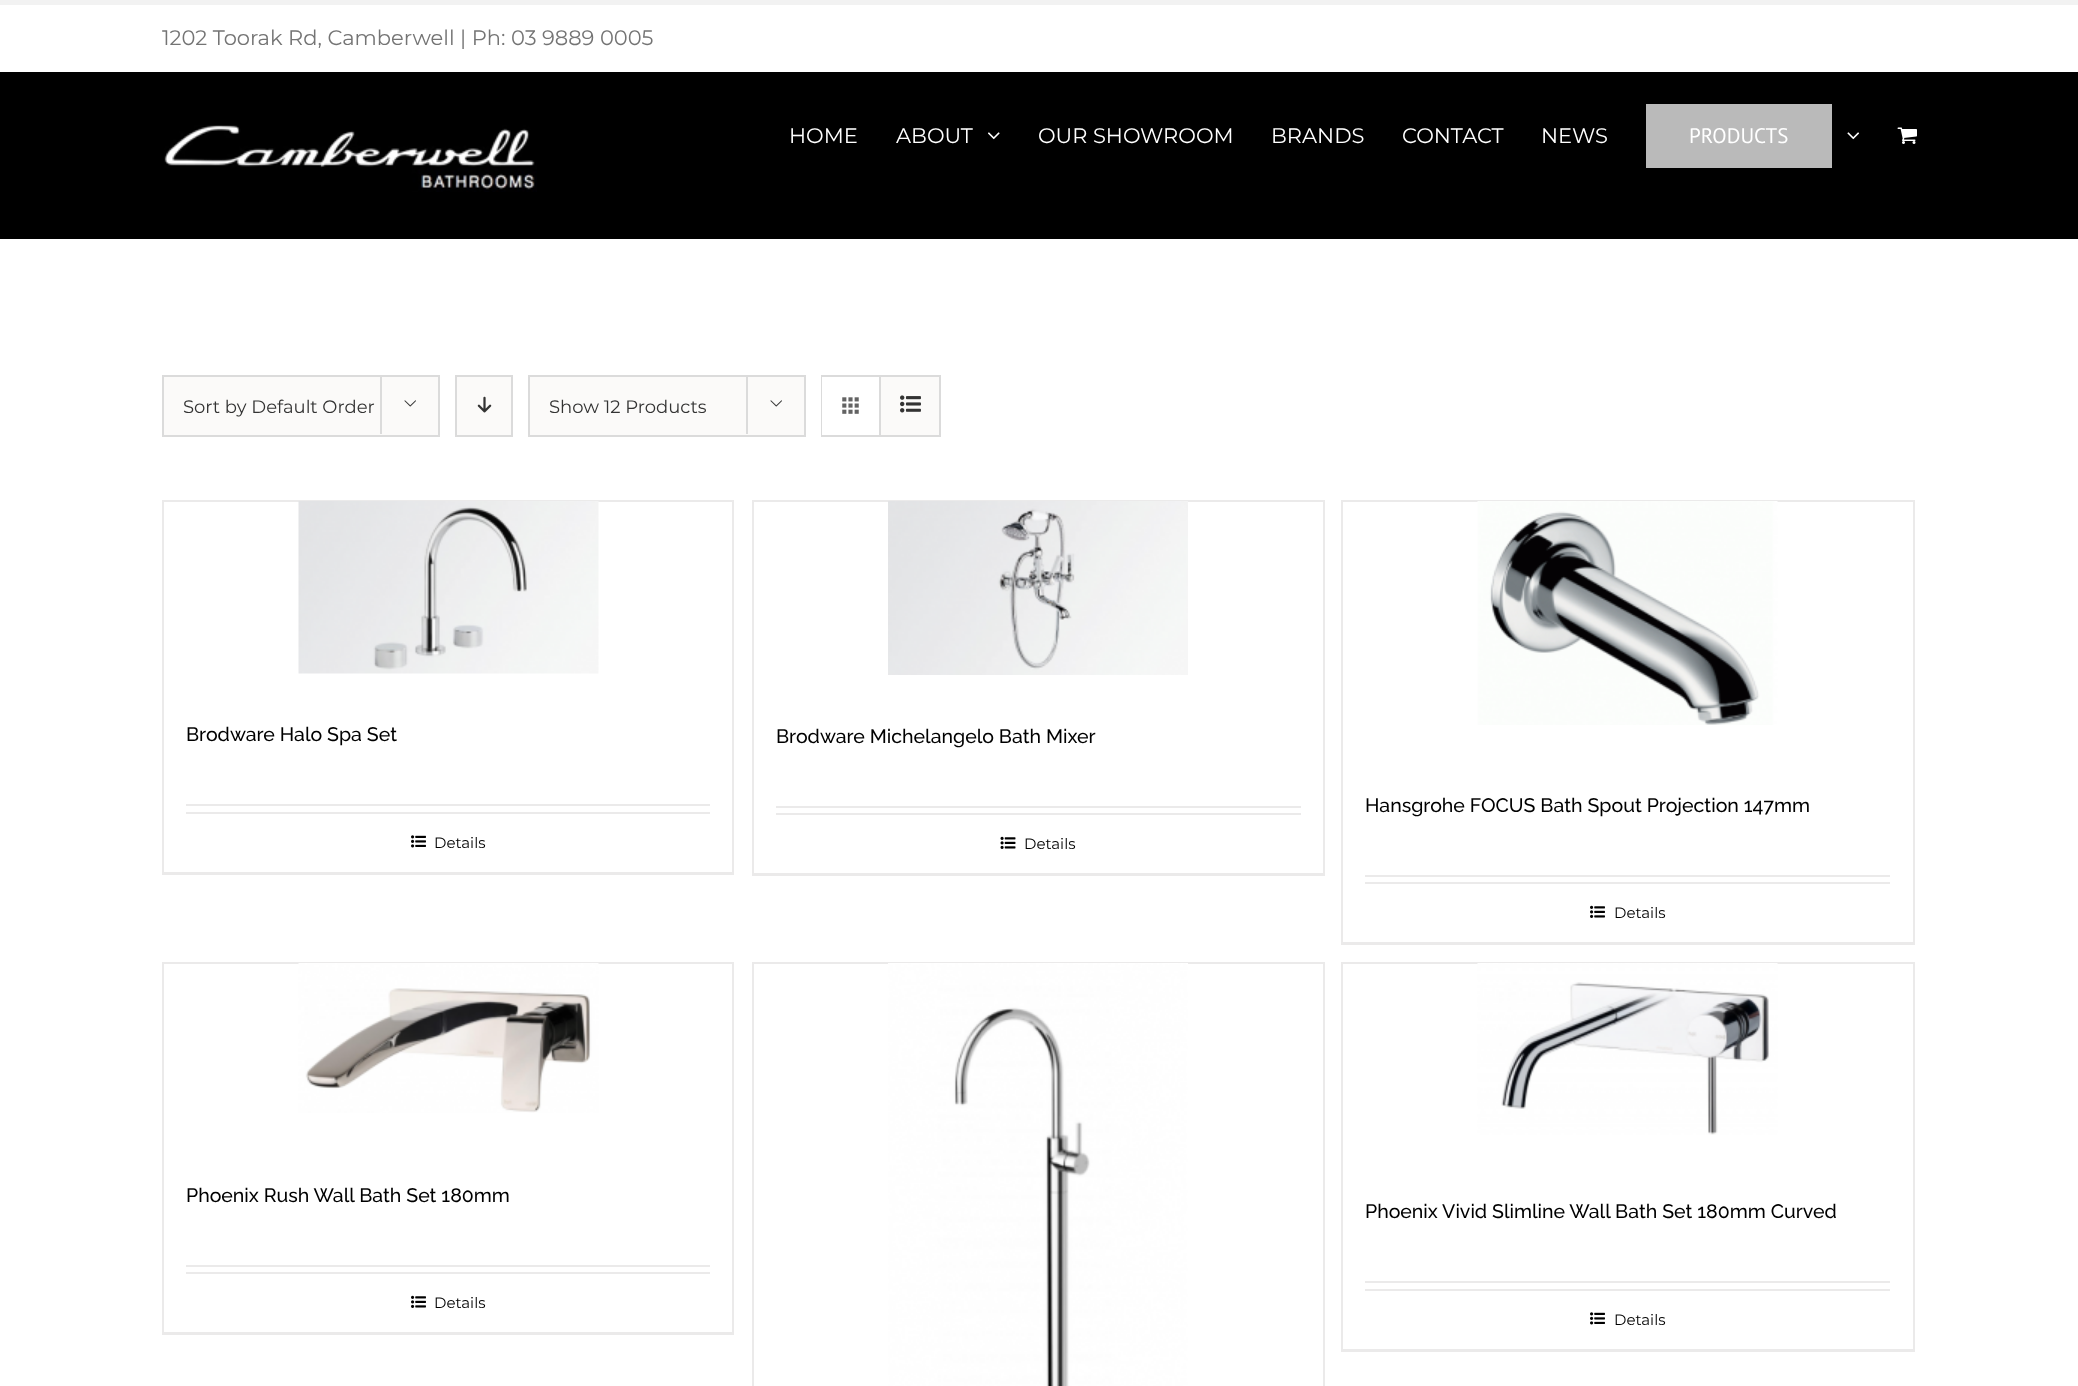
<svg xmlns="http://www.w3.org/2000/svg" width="2078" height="1386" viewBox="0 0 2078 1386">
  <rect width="100%" height="100%" fill="#ffffff"/>
  <rect x="0" y="0" width="2078" height="5" fill="#f2f2f2"/>
  <text x="162" y="45" font-family="Montserrat" font-size="21" fill="#747474">1202 Toorak Rd, Camberwell | Ph: 03 9889 0005</text>
  <rect x="0" y="72" width="2078" height="167" fill="#000000"/>
  <image x="164" y="125" width="373" height="67" href="img1.png"/>
  <text x="789" y="143" font-family="Montserrat" font-size="21" fill="#ffffff">HOME</text>
  <text x="896" y="143" font-family="Montserrat" font-size="21" fill="#ffffff">ABOUT</text>
  <image x="988" y="132" width="12" height="8" href="img2.png"/>
  <text x="1038" y="143" font-family="Montserrat" font-size="21" fill="#ffffff">OUR SHOWROOM</text>
  <text x="1271" y="143" font-family="Montserrat" font-size="21" fill="#ffffff">BRANDS</text>
  <text x="1402" y="143" font-family="Montserrat" font-size="21" fill="#ffffff">CONTACT</text>
  <text x="1541" y="143" font-family="Montserrat" font-size="21" fill="#ffffff">NEWS</text>
  <rect x="1646" y="104" width="186" height="64" fill="#bababa"/>
  <text x="1689" y="143" font-family="PT Sans" font-size="21" fill="#ffffff">PRODUCTS</text>
  <image x="1847" y="132" width="13" height="8" href="img3.png"/>
  <image x="1897" y="127" width="20" height="17" href="img4.png"/>
  <rect x="163" y="376" width="276" height="60" fill="#fbfaf9" stroke="#dbdbdb" stroke-width="2"/>
  <text x="183" y="413" font-family="Montserrat" font-size="18" fill="#333333">Sort by Default Order</text>
  <rect x="380" y="375" width="2" height="59" fill="#dbdbdb"/>
  <image x="404" y="400" width="12" height="7" href="img5.png"/>
  <rect x="456" y="376" width="56" height="60" fill="#fbfaf9" stroke="#dbdbdb" stroke-width="2"/>
  <image x="477" y="396" width="15" height="17" href="img6.png"/>
  <rect x="529" y="376" width="276" height="60" fill="#fbfaf9" stroke="#dbdbdb" stroke-width="2"/>
  <text x="549" y="413" font-family="Montserrat" font-size="18" fill="#333333">Show 12 Products</text>
  <rect x="746" y="375" width="2" height="59" fill="#dbdbdb"/>
  <image x="770" y="400" width="12" height="7" href="img5.png"/>
  <rect x="822" y="376" width="118" height="60" fill="none" stroke="#dbdbdb" stroke-width="2"/>
  <rect x="822" y="377" width="1" height="58" fill="#ffffff"/>
  <rect x="879" y="377" width="2" height="58" fill="#dbdbdb"/>
  <image x="842" y="397" width="17" height="17" href="img7.png"/>
  <rect x="881" y="377" width="58" height="58" fill="#fbfaf9"/>
  <image x="900" y="395" width="21" height="18" href="img8.png"/>
  <rect x="162" y="500" width="572" height="2" fill="#ebeaea"/>
  <rect x="732" y="500" width="2" height="375" fill="#ebeaea"/>
  <rect x="162" y="872" width="572" height="3" fill="#ebeaea"/>
  <rect x="162" y="500" width="2" height="375" fill="#ebeaea"/>
  <image x="298" y="501" width="301" height="173" href="img9.png"/>
  <rect x="186" y="804" width="524" height="2" fill="#ebeaea"/>
  <text x="186" y="741" font-family="Raleway" font-size="19.5" font-weight="500" fill="#000000">Brodware Halo Spa Set</text>
  <rect x="186" y="812" width="524" height="2" fill="#ebeaea"/>
  <image x="411" y="835" width="15" height="13" href="img10.png"/>
  <text x="434" y="848" font-family="Montserrat" font-size="15" fill="#000000">Details</text>
  <rect x="752" y="500" width="573" height="2" fill="#ebeaea"/>
  <rect x="1323" y="500" width="2" height="376" fill="#ebeaea"/>
  <rect x="752" y="873" width="573" height="3" fill="#ebeaea"/>
  <rect x="752" y="500" width="2" height="376" fill="#ebeaea"/>
  <image x="888" y="501" width="300" height="174" href="img11.png"/>
  <rect x="776" y="806" width="525" height="2" fill="#ebeaea"/>
  <text x="776" y="743" font-family="Raleway" font-size="19.5" font-weight="500" fill="#000000">Brodware Michelangelo Bath Mixer</text>
  <rect x="776" y="813" width="525" height="2" fill="#ebeaea"/>
  <image x="1000" y="836" width="16" height="13" href="img12.png"/>
  <text x="1024" y="849" font-family="Montserrat" font-size="15" fill="#000000">Details</text>
  <rect x="1341" y="500" width="573" height="2" fill="#ebeaea"/>
  <rect x="1913" y="500" width="2" height="445" fill="#ebeaea"/>
  <rect x="1341" y="942" width="573" height="3" fill="#ebeaea"/>
  <rect x="1341" y="500" width="2" height="445" fill="#ebeaea"/>
  <image x="1477" y="501" width="301" height="224" href="img13.png"/>
  <rect x="1365" y="875" width="525" height="2" fill="#ebeaea"/>
  <text x="1365" y="812" font-family="Raleway" font-size="19.5" font-weight="500" fill="#000000">Hansgrohe FOCUS Bath Spout Projection 147mm</text>
  <rect x="1365" y="882" width="525" height="2" fill="#ebeaea"/>
  <image x="1590" y="905" width="15" height="13" href="img14.png"/>
  <text x="1614" y="918" font-family="Montserrat" font-size="15" fill="#000000">Details</text>
  <rect x="162" y="962" width="572" height="2" fill="#ebeaea"/>
  <rect x="732" y="962" width="2" height="373" fill="#ebeaea"/>
  <rect x="162" y="1332" width="572" height="3" fill="#ebeaea"/>
  <rect x="162" y="962" width="2" height="373" fill="#ebeaea"/>
  <image x="298" y="963" width="301" height="150" href="img15.png"/>
  <rect x="186" y="1265" width="524" height="2" fill="#ebeaea"/>
  <text x="186" y="1202" font-family="Raleway" font-size="19.5" font-weight="500" fill="#000000">Phoenix Rush Wall Bath Set 180mm</text>
  <rect x="186" y="1272" width="524" height="2" fill="#ebeaea"/>
  <image x="411" y="1295" width="15" height="13" href="img14.png"/>
  <text x="434" y="1308" font-family="Montserrat" font-size="15" fill="#000000">Details</text>
  <rect x="752" y="962" width="573" height="2" fill="#ebeaea"/>
  <rect x="1323" y="962" width="2" height="424" fill="#ebeaea"/>
  <rect x="752" y="962" width="2" height="424" fill="#ebeaea"/>
  <image x="888" y="963" width="300" height="423" href="img16.png"/>
  <rect x="1341" y="962" width="573" height="2" fill="#ebeaea"/>
  <rect x="1913" y="962" width="2" height="390" fill="#ebeaea"/>
  <rect x="1341" y="1349" width="573" height="3" fill="#ebeaea"/>
  <rect x="1341" y="962" width="2" height="390" fill="#ebeaea"/>
  <image x="1477" y="963" width="301" height="172" href="img17.png"/>
  <rect x="1365" y="1281" width="525" height="2" fill="#ebeaea"/>
  <text x="1365" y="1218" font-family="Raleway" font-size="19.5" font-weight="500" fill="#000000">Phoenix Vivid Slimline Wall Bath Set 180mm Curved</text>
  <rect x="1365" y="1289" width="525" height="2" fill="#ebeaea"/>
  <image x="1590" y="1312" width="15" height="13" href="img10.png"/>
  <text x="1614" y="1325" font-family="Montserrat" font-size="15" fill="#000000">Details</text>
</svg>
